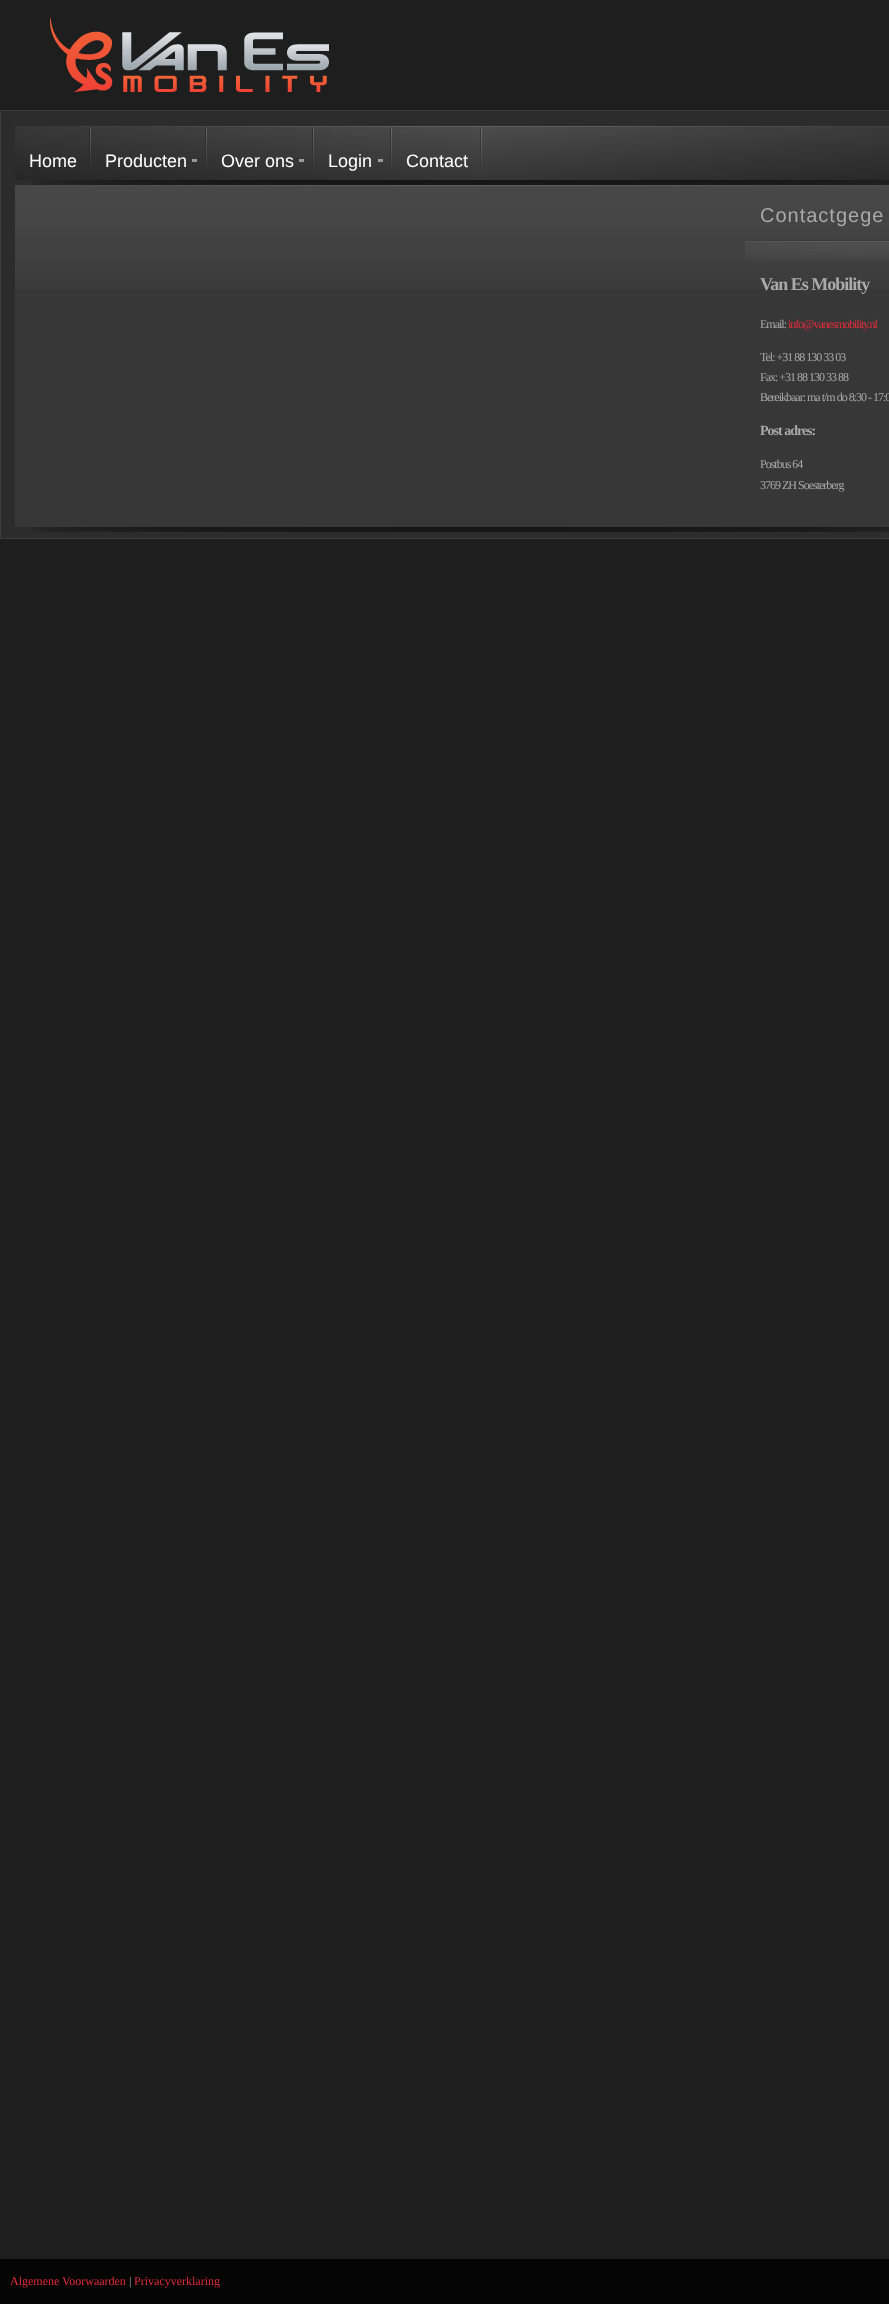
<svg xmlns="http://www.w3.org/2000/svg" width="889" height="2304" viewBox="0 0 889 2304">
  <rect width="100%" height="100%" fill="#1e1e1e"/>
  <image x="50" y="17" width="279" height="75" href="img1.png"/>
  <rect x="0.5" y="110.5" width="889" height="428" fill="#2c2c2c" stroke="#3c3c3c"/>
  <rect x="15" y="126" width="874" height="54" fill="#373737"/>
  <image x="15" y="126" width="874" height="54" href="img2.png"/>
  <image x="89" y="127" width="2" height="45" href="img3.png"/>
  <text x="29" y="167" font-family="Liberation Sans" font-size="18" fill="#ffffff">Home</text>
  <image x="205" y="127" width="2" height="45" href="img4.png"/>
  <rect x="192" y="159" width="5" height="3" fill="#999999"/>
  <text x="105" y="167" font-family="Liberation Sans" font-size="18" fill="#ffffff">Producten</text>
  <image x="312" y="127" width="2" height="44" href="img5.png"/>
  <rect x="299" y="159" width="5" height="3" fill="#9b9b9b"/>
  <text x="221" y="167" font-family="Liberation Sans" font-size="18" fill="#ffffff">Over ons</text>
  <image x="390" y="127" width="2" height="44" href="img6.png"/>
  <rect x="378" y="159" width="5" height="3" fill="#9d9d9d"/>
  <text x="328" y="167" font-family="Liberation Sans" font-size="18" fill="#ffffff">Login</text>
  <image x="480" y="127" width="2" height="44" href="img7.png"/>
  <text x="406" y="167" font-family="Liberation Sans" font-size="18" fill="#ffffff">Contact</text>
  <image x="33" y="180" width="856" height="5" href="img8.png"/>
  <rect x="15" y="185" width="874" height="342" fill="#373737"/>
  <image x="15" y="185" width="874" height="104" href="img9.png"/>
  <image x="745" y="240" width="144" height="21" href="img10.png"/>
  <text x="760" y="222" font-family="Liberation Sans" font-size="20" letter-spacing="1" fill="#aaaaaa">Contactgege</text>
  <text x="760" y="290" font-family="Liberation Serif" font-size="18" font-weight="bold" letter-spacing="-1" fill="#aaaaaa">Van Es Mobility</text>
  <text x="760" y="328" font-family="Liberation Serif" font-size="12" letter-spacing="-1" fill="#aaaaaa">Email:</text>
  <text x="788" y="328" font-family="Liberation Serif" font-size="12" letter-spacing="-1" fill="#e32c3a">info@vanesmobility.nl</text>
  <text x="760" y="361" font-family="Liberation Serif" font-size="12" letter-spacing="-1" fill="#aaaaaa">Tel: +31 88 130 33 03</text>
  <text x="760" y="381" font-family="Liberation Serif" font-size="12" letter-spacing="-1" fill="#aaaaaa">Fax: +31 88 130 33 88</text>
  <text x="760" y="401" font-family="Liberation Serif" font-size="12" letter-spacing="-1" fill="#aaaaaa">Bereikbaar: ma t/m do 8:30 - 17:0</text>
  <text x="760" y="435" font-family="Liberation Serif" font-size="14" font-weight="bold" letter-spacing="-1" fill="#aaaaaa">Post adres:</text>
  <text x="760" y="468" font-family="Liberation Serif" font-size="12" letter-spacing="-1" fill="#aaaaaa">Postbus 64</text>
  <text x="760" y="489" font-family="Liberation Serif" font-size="12" letter-spacing="-1" fill="#aaaaaa">3769 ZH Soesterberg</text>
  <image x="33" y="527" width="856" height="5" href="img8.png"/>
  <rect x="0" y="2259" width="889" height="45" fill="#050505"/>
  <text x="10" y="2285" font-family="Liberation Serif" font-size="12" fill="#e32c3a">Algemene Voorwaarden</text>
  <text x="129" y="2285" font-family="Liberation Serif" font-size="12" fill="#aaaaaa">|</text>
  <text x="134" y="2285" font-family="Liberation Serif" font-size="12" fill="#e32c3a">Privacyverklaring</text>
</svg>
